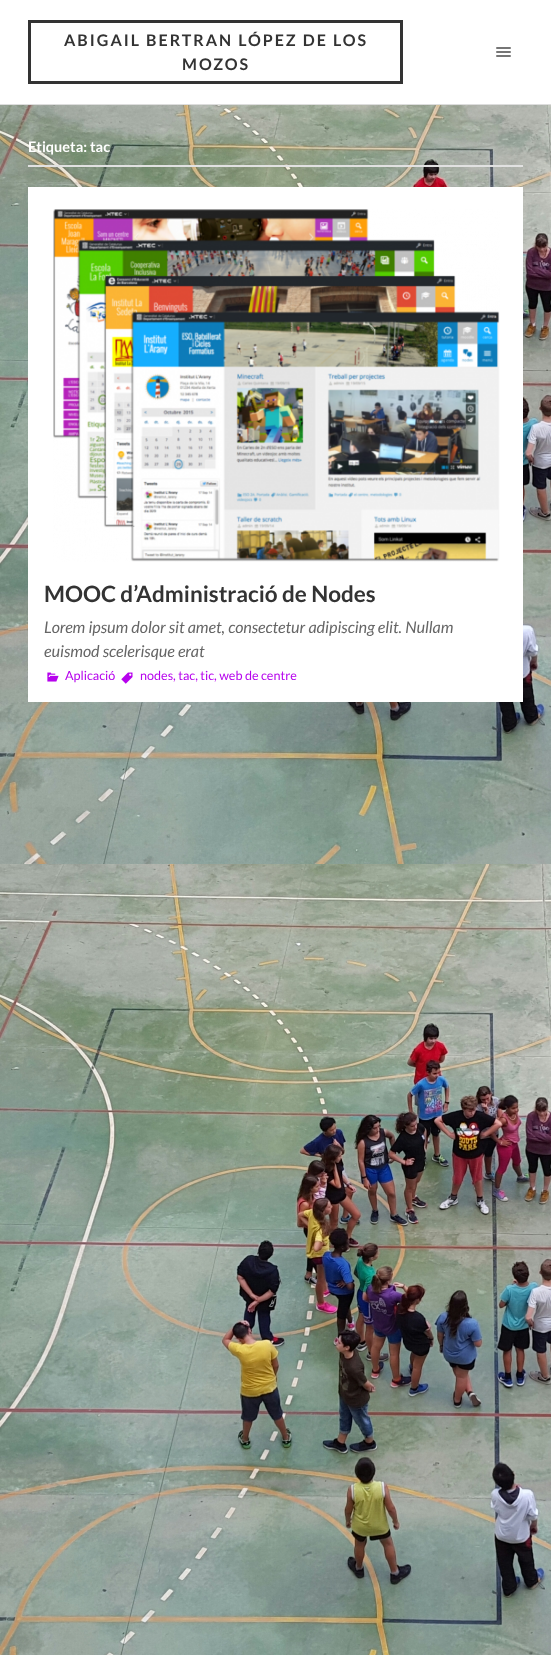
<svg xmlns="http://www.w3.org/2000/svg" width="551" height="1655" viewBox="0 0 551 1655">
  <rect width="100%" height="100%" fill="#ffffff"/>
  <image x="0" y="105" width="551" height="1550" href="img1.png"/>
  <rect x="0" y="104" width="551" height="1" fill="#dddddd"/>
  <rect x="29.5" y="21.5" width="372" height="61" fill="none" stroke="#333333" stroke-width="3"/>
  <text x="64" y="46" font-family="Lato" font-size="16" font-weight="bold" letter-spacing="2" fill="#333333">ABIGAIL BERTRAN LÓPEZ DE LOS</text>
  <text x="182" y="70" font-family="Lato" font-size="16" font-weight="bold" letter-spacing="2" fill="#333333">MOZOS</text>
  <rect x="496" y="47" width="15" height="2" rx="1" fill="#767676"/>
  <rect x="496" y="51" width="15" height="2" rx="1" fill="#767676"/>
  <rect x="496" y="55" width="15" height="2" rx="1" fill="#767676"/>
  <rect x="28" y="165" width="495" height="2" fill="#e1e1e1"/>
  <text x="28" y="152" font-family="Lato" font-size="14.5" font-weight="bold" fill="#ffffff">Etiqueta: tac</text>
  <rect x="28" y="187" width="495" height="515" fill="#ffffff"/>
  <image x="53" y="209" width="447" height="353" href="img2.png"/>
  <text x="44" y="602" font-family="Lato" font-size="22.5" font-weight="bold" fill="#333333">MOOC d’Administració de Nodes</text>
  <text x="44" y="633" font-family="Lato" font-size="16.2" font-style="italic" fill="#666666">Lorem ipsum dolor sit amet, consectetur adipiscing elit. Nullam</text>
  <text x="44" y="657" font-family="Lato" font-size="16.2" font-style="italic" fill="#666666">euismod scelerisque erat</text>
  <image x="47" y="672" width="12" height="10" href="img3.png"/>
  <text x="65" y="680" font-family="Lato" font-size="12.6" fill="#b602ed">Aplicació</text>
  <image x="121" y="672" width="12" height="12" href="img4.png"/>
  <text x="140" y="680" font-family="Lato" font-size="12.6" fill="#b602ed">nodes, tac, tic, web de centre</text>
</svg>
